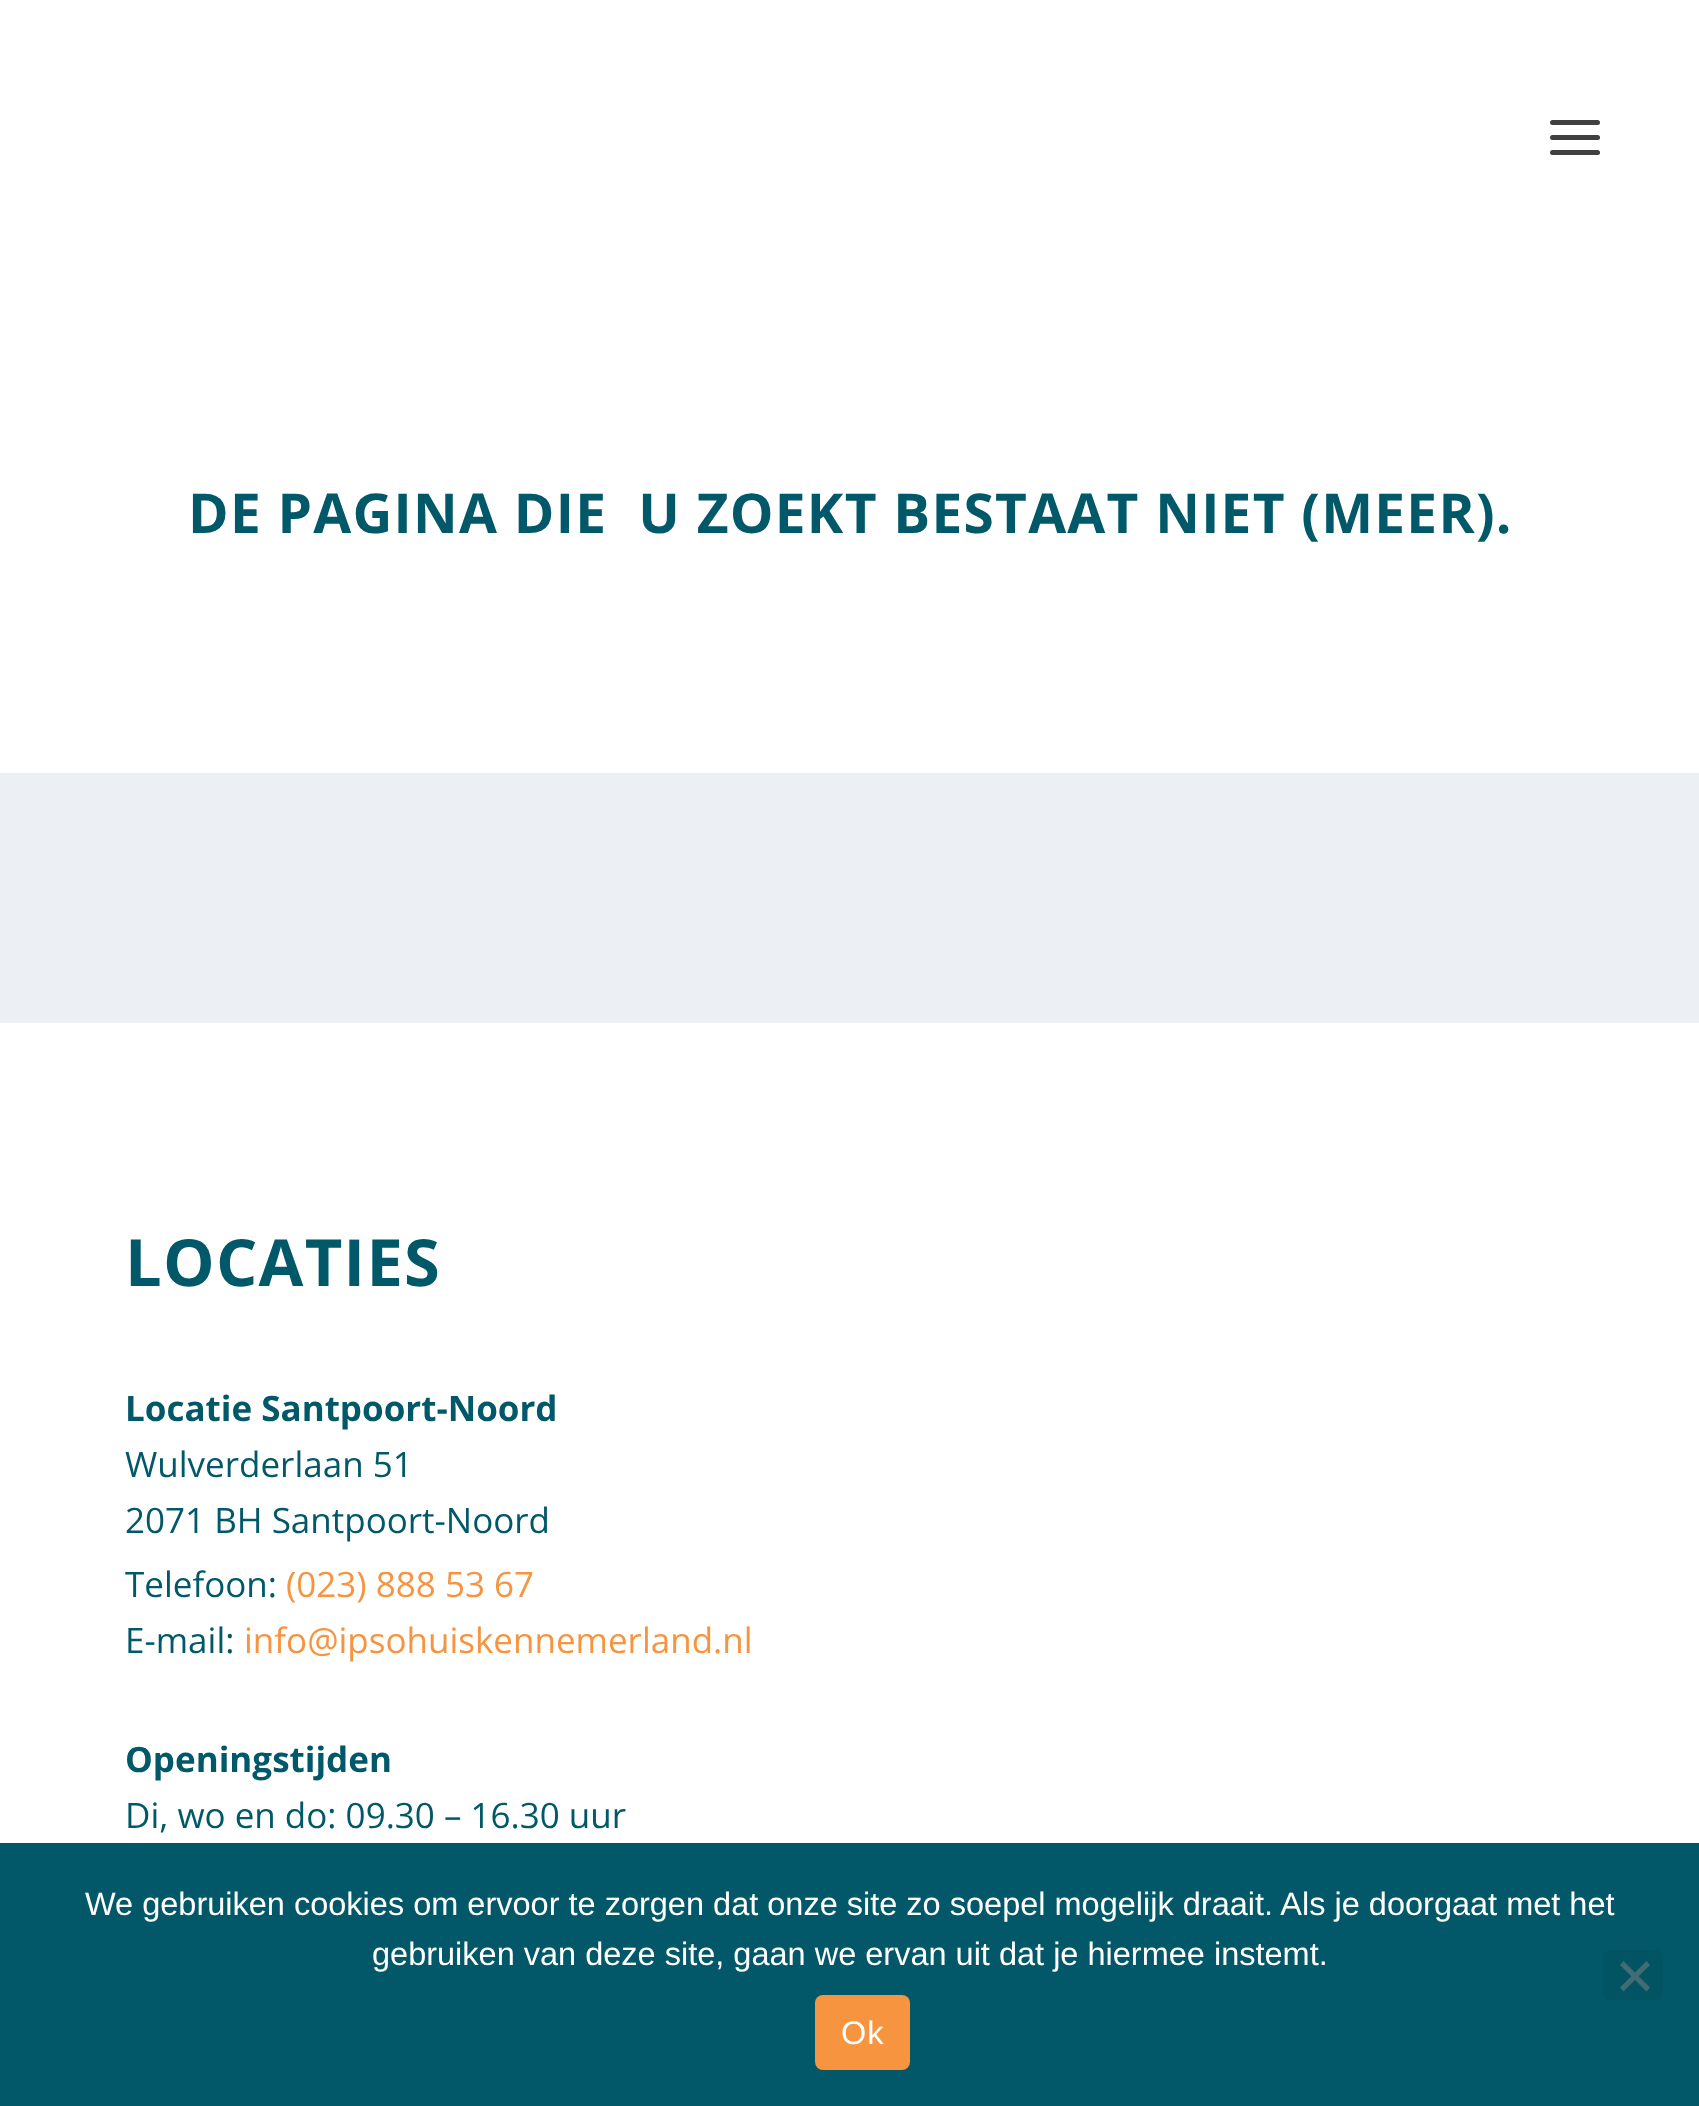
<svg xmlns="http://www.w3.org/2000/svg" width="1699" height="2106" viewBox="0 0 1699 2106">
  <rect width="100%" height="100%" fill="#ecf0f5"/>
  <rect x="0" y="0" width="1699" height="773" fill="#ffffff"/>
  <rect x="1550" y="120" width="50" height="5" rx="2.5" fill="#404040"/>
  <rect x="1550" y="135" width="50" height="5" rx="2.5" fill="#404040"/>
  <rect x="1550" y="150" width="50" height="5" rx="2.5" fill="#404040"/>
  <text x="188" y="533" font-family="Open Sans" font-size="55" font-weight="bold" letter-spacing="1.25" fill="#005868" xml:space="preserve">DE PAGINA DIE  U ZOEKT BESTAAT NIET (MEER).</text>
  <rect x="0" y="1023" width="1699" height="820" fill="#ffffff"/>
  <text x="125" y="1286" font-family="Open Sans" font-size="65" font-weight="bold" letter-spacing="1.25" fill="#005868">LOCATIES</text>
  <text x="125" y="1421" font-family="Open Sans" font-size="35" font-weight="bold" fill="#005868">Locatie Santpoort-Noord</text>
  <text x="125" y="1477" font-family="Open Sans" font-size="35" fill="#005868">Wulverderlaan 51</text>
  <text x="125" y="1533" font-family="Open Sans" font-size="35" fill="#005868">2071 BH Santpoort-Noord</text>
  <text x="125" y="1597" font-family="Open Sans" font-size="35" fill="#005868">Telefoon:</text>
  <text x="286" y="1597" font-family="Open Sans" font-size="35" fill="#f79440">(023) 888 53 67</text>
  <text x="125" y="1653" font-family="Open Sans" font-size="35" fill="#005868">E-mail:</text>
  <text x="244" y="1653" font-family="Open Sans" font-size="35" fill="#f79440">info@ipsohuiskennemerland.nl</text>
  <text x="125" y="1772" font-family="Open Sans" font-size="35" font-weight="bold" fill="#005868">Openingstijden</text>
  <text x="125" y="1828" font-family="Open Sans" font-size="35" fill="#005868">Di, wo en do: 09.30 – 16.30 uur</text>
  <rect x="0" y="1843" width="1699" height="263" fill="#025868"/>
  <text x="85" y="1915" font-family="Liberation Sans" font-size="32.5" fill="#ffffff">We gebruiken cookies om ervoor te zorgen dat onze site zo soepel mogelijk draait. Als je doorgaat met het</text>
  <text x="372" y="1965" font-family="Liberation Sans" font-size="32.5" fill="#ffffff">gebruiken van deze site, gaan we ervan uit dat je hiermee instemt.</text>
  <rect x="1603" y="1950" width="60" height="50" rx="8" fill="#025463"/>
  <path d="M1646.5 1961L1650 1965L1623.5 1991.5L1620 1987.5Z" fill="#416c74"/>
  <path d="M1620 1965L1623.5 1961L1650 1987.5L1646.5 1991.5Z" fill="#416c74"/>
  <rect x="815" y="1995" width="95" height="75" rx="8" fill="#f69440"/>
  <text x="841" y="2044" font-family="Liberation Sans" font-size="32.5" letter-spacing="1" fill="#ffffff">Ok</text>
</svg>
